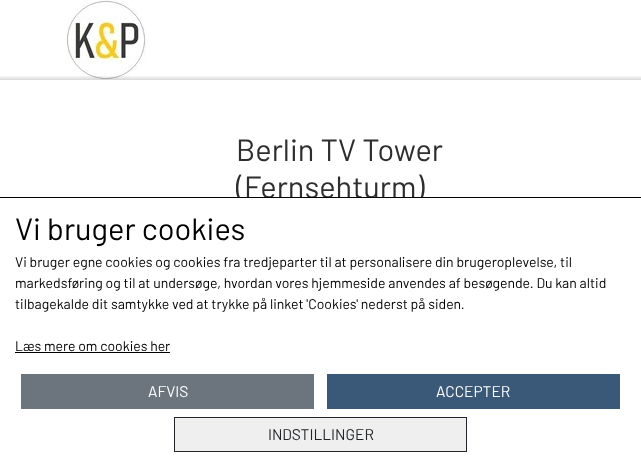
<svg xmlns="http://www.w3.org/2000/svg" width="641" height="459" viewBox="0 0 641 459">
  <defs>
    <linearGradient id="g1" gradientUnits="userSpaceOnUse" x1="321" y1="80" x2="321" y2="75"><stop offset="0" stop-color="#000000" stop-opacity="0.15"/><stop offset="1" stop-color="#000000" stop-opacity="0"/></linearGradient>
    <clipPath id="clip1"><rect x="236" y="130" width="340" height="74"/></clipPath>
  </defs>
  <rect width="100%" height="100%" fill="#ffffff"/>
  <image x="66" y="0" width="80" height="80" href="img1.png"/>
  <rect x="0" y="76" width="641" height="4" fill="url(#g1)"/>
  <text x="236" y="161" font-family="Barlow" font-size="30.75" fill="#2e2e2e">Berlin TV Tower</text>
  <g clip-path="url(#clip1)">
    <text x="236" y="198" font-family="Barlow" font-size="30.75" fill="#2e2e2e">(Fernsehturm)</text>
  </g>
  <rect x="237" y="198" width="186" height="4" fill="#ffffff"/>
  <rect x="0" y="197" width="641" height="1" fill="#000000"/>
  <text x="15" y="240" font-family="Barlow" font-size="30.75" fill="#000000">Vi bruger cookies</text>
  <text x="15" y="267" font-family="Barlow" font-size="14" fill="#000000">Vi bruger egne cookies og cookies fra tredjeparter til at personalisere din brugeroplevelse, til</text>
  <text x="15" y="288" font-family="Barlow" font-size="14" fill="#000000">markedsføring og til at undersøge, hvordan vores hjemmeside anvendes af besøgende. Du kan altid</text>
  <text x="15" y="309" font-family="Barlow" font-size="14" fill="#000000">tilbagekalde dit samtykke ved at trykke på linket 'Cookies' nederst på siden.</text>
  <text x="15" y="351" font-family="Barlow" font-size="14" fill="#000000">Læs mere om cookies her</text>
  <rect x="15" y="352" width="155" height="1" fill="#000000"/>
  <rect x="21" y="374" width="293" height="35" fill="#6c757d"/>
  <text x="148" y="397" font-family="Barlow" font-size="15.5" fill="#ffffff">AFVIS</text>
  <rect x="327" y="374" width="293" height="35" fill="#3a5878"/>
  <text x="436" y="397" font-family="Barlow" font-size="15.5" fill="#ffffff">ACCEPTER</text>
  <rect x="174.5" y="417.5" width="292" height="34" fill="#efefef" stroke="#212529"/>
  <text x="268" y="440" font-family="Barlow" font-size="15.5" fill="#212529">INDSTILLINGER</text>
</svg>
